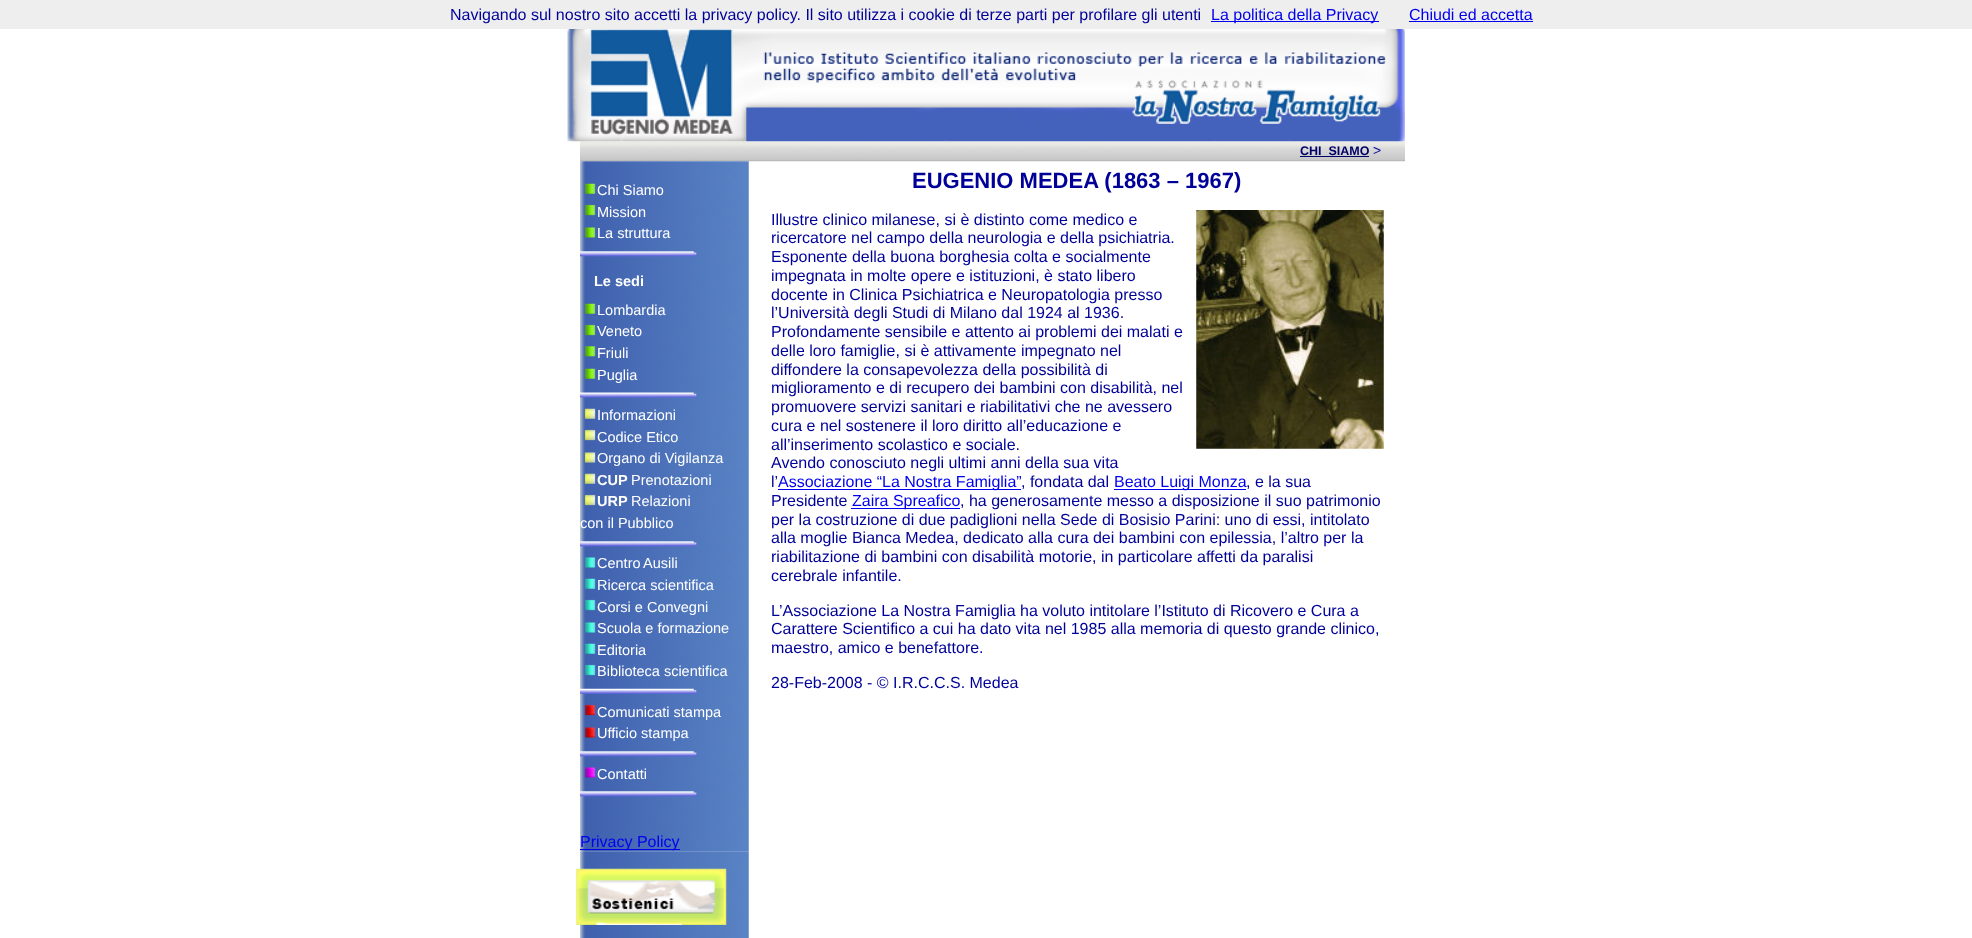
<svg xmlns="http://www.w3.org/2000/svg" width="1972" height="938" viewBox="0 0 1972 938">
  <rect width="100%" height="100%" fill="#ffffff"/>
  <rect x="0" y="0" width="1972" height="29" fill="#eeeeee"/>
  <text x="450" y="20" font-family="Liberation Sans" font-size="16" fill="#000099">Navigando sul nostro sito accetti la privacy policy. Il sito utilizza i cookie di terze parti per profilare gli utenti</text>
  <rect x="1211" y="21" width="168" height="1" fill="#0000ee"/>
  <text x="1211" y="20" font-family="Liberation Sans" font-size="16" fill="#0000ee">La politica della Privacy</text>
  <text x="1409" y="20" font-family="Liberation Sans" font-size="16" fill="#0000ee">Chiudi ed accetta</text>
  <rect x="1409" y="21" width="124" height="1" fill="#0000ee"/>
  <image x="580" y="141" width="825" height="21" href="img2.png"/>
  <image x="567" y="29" width="838" height="113" href="img1.png"/>
  <rect x="1300" y="156" width="69" height="1" fill="#000066"/>
  <text x="1300" y="155" font-family="Liberation Sans" font-size="12.5" font-weight="bold" fill="#000066">CHI_SIAMO</text>
  <text x="1373" y="155" font-family="Liberation Sans" font-size="14" fill="#000099">&gt;</text>
  <image x="580" y="161" width="169" height="691" href="img3.png"/>
  <image x="584" y="183" width="12" height="11" href="img4.png"/>
  <text x="597" y="195" font-family="Liberation Sans" font-size="14.5" fill="#ffffff">Chi Siamo</text>
  <image x="584" y="204" width="12" height="12" href="img5.png"/>
  <text x="597" y="217" font-family="Liberation Sans" font-size="14.5" fill="#ffffff">Mission</text>
  <image x="584" y="227" width="12" height="11" href="img6.png"/>
  <text x="597" y="238" font-family="Liberation Sans" font-size="14.5" fill="#ffffff">La struttura</text>
  <image x="580" y="251" width="117" height="6" href="img7.png"/>
  <text x="594" y="286" font-family="Liberation Sans" font-size="14.5" font-weight="bold" fill="#ffffff">Le sedi</text>
  <image x="584" y="303" width="12" height="11" href="img8.png"/>
  <text x="597" y="315" font-family="Liberation Sans" font-size="14.5" fill="#ffffff">Lombardia</text>
  <image x="584" y="324" width="12" height="12" href="img9.png"/>
  <text x="597" y="336" font-family="Liberation Sans" font-size="14.5" fill="#ffffff">Veneto</text>
  <image x="584" y="346" width="12" height="11" href="img10.png"/>
  <text x="597" y="358" font-family="Liberation Sans" font-size="14.5" fill="#ffffff">Friuli</text>
  <image x="584" y="368" width="12" height="11" href="img11.png"/>
  <text x="597" y="380" font-family="Liberation Sans" font-size="14.5" fill="#ffffff">Puglia</text>
  <image x="580" y="392" width="117" height="6" href="img12.png"/>
  <image x="584" y="408" width="12" height="11" href="img13.png"/>
  <text x="597" y="420" font-family="Liberation Sans" font-size="14.5" fill="#ffffff">Informazioni</text>
  <image x="584" y="429" width="12" height="12" href="img14.png"/>
  <text x="597" y="442" font-family="Liberation Sans" font-size="14.5" fill="#ffffff">Codice Etico</text>
  <image x="584" y="452" width="12" height="11" href="img15.png"/>
  <text x="597" y="463" font-family="Liberation Sans" font-size="14.5" fill="#ffffff">Organo di Vigilanza</text>
  <image x="584" y="473" width="12" height="11" href="img16.png"/>
  <text x="597" y="485" font-family="Liberation Sans" font-size="14.5" font-weight="bold" fill="#ffffff">CUP</text>
  <text x="631" y="485" font-family="Liberation Sans" font-size="14.5" fill="#ffffff">Prenotazioni</text>
  <image x="584" y="494" width="12" height="12" href="img17.png"/>
  <text x="597" y="506" font-family="Liberation Sans" font-size="14.5" font-weight="bold" fill="#ffffff">URP</text>
  <text x="631" y="506" font-family="Liberation Sans" font-size="14.5" fill="#ffffff">Relazioni</text>
  <text x="580" y="528" font-family="Liberation Sans" font-size="14.5" fill="#ffffff">con il Pubblico</text>
  <image x="580" y="541" width="117" height="6" href="img18.png"/>
  <image x="585" y="557" width="11" height="11" href="img19.png"/>
  <text x="597" y="568" font-family="Liberation Sans" font-size="14.5" fill="#ffffff">Centro</text>
  <text x="643" y="568" font-family="Liberation Sans" font-size="14.5" fill="#ffffff">Ausili</text>
  <image x="584" y="578" width="12" height="11" href="img20.png"/>
  <text x="597" y="590" font-family="Liberation Sans" font-size="14.5" fill="#ffffff">Ricerca scientifica</text>
  <image x="585" y="599" width="11" height="12" href="img21.png"/>
  <text x="597" y="612" font-family="Liberation Sans" font-size="14.5" fill="#ffffff">Corsi e Convegni</text>
  <image x="585" y="622" width="11" height="11" href="img22.png"/>
  <text x="597" y="633" font-family="Liberation Sans" font-size="14.5" fill="#ffffff">Scuola e formazione</text>
  <image x="584" y="643" width="12" height="11" href="img23.png"/>
  <text x="597" y="655" font-family="Liberation Sans" font-size="14.5" fill="#ffffff">Editoria</text>
  <image x="585" y="664" width="11" height="12" href="img24.png"/>
  <text x="597" y="676" font-family="Liberation Sans" font-size="14.5" fill="#ffffff">Biblioteca scientifica</text>
  <image x="580" y="688" width="117" height="6" href="img25.png"/>
  <image x="584" y="704" width="12" height="12" href="img26.png"/>
  <text x="597" y="717" font-family="Liberation Sans" font-size="14.5" fill="#ffffff">Comunicati stampa</text>
  <image x="584" y="727" width="12" height="11" href="img27.png"/>
  <text x="597" y="738" font-family="Liberation Sans" font-size="14.5" fill="#ffffff">Ufficio stampa</text>
  <image x="580" y="751" width="117" height="6" href="img28.png"/>
  <image x="584" y="767" width="12" height="11" href="img29.png"/>
  <text x="597" y="779" font-family="Liberation Sans" font-size="14.5" fill="#ffffff">Contatti</text>
  <image x="580" y="791" width="117" height="6" href="img30.png"/>
  <rect x="580" y="849" width="100" height="1" fill="#0000ee"/>
  <text x="580" y="847" font-family="Liberation Sans" font-size="16" fill="#0000ee">Privacy Policy</text>
  <image x="580" y="851" width="169" height="87" href="img31.png"/>
  <image x="576" y="868" width="151" height="57" href="img32.png"/>
  <text x="912" y="188" font-family="Liberation Sans" font-size="22" font-weight="bold" fill="#000099">EUGENIO MEDEA (1863 – 1967)</text>
  <text x="771" y="225" font-family="Liberation Sans" font-size="16" fill="#000099">Illustre clinico milanese, si è distinto come medico e</text>
  <image x="1196" y="210" width="188" height="239" href="img33.png"/>
  <text x="771" y="243" font-family="Liberation Sans" font-size="16" fill="#000099">ricercatore nel campo della neurologia e della psichiatria.</text>
  <text x="771" y="262" font-family="Liberation Sans" font-size="16" fill="#000099">Esponente della buona borghesia colta e socialmente</text>
  <text x="771" y="281" font-family="Liberation Sans" font-size="16" fill="#000099">impegnata in molte opere e istituzioni, è stato libero</text>
  <text x="771" y="300" font-family="Liberation Sans" font-size="16" fill="#000099">docente in Clinica Psichiatrica e Neuropatologia presso</text>
  <text x="771" y="318" font-family="Liberation Sans" font-size="16" fill="#000099">l’Università degli Studi di Milano dal 1924 al 1936.</text>
  <text x="771" y="337" font-family="Liberation Sans" font-size="16" fill="#000099">Profondamente sensibile e attento ai problemi dei malati e</text>
  <text x="771" y="356" font-family="Liberation Sans" font-size="16" fill="#000099">delle loro famiglie, si è attivamente impegnato nel</text>
  <text x="771" y="375" font-family="Liberation Sans" font-size="16" fill="#000099">diffondere la consapevolezza della possibilità di</text>
  <text x="771" y="393" font-family="Liberation Sans" font-size="16" fill="#000099">miglioramento e di recupero dei bambini con disabilità, nel</text>
  <text x="771" y="412" font-family="Liberation Sans" font-size="16" fill="#000099">promuovere servizi sanitari e riabilitativi che ne avessero</text>
  <text x="771" y="431" font-family="Liberation Sans" font-size="16" fill="#000099">cura e nel sostenere il loro diritto all’educazione e</text>
  <text x="771" y="450" font-family="Liberation Sans" font-size="16" fill="#000099">all’inserimento scolastico e sociale.</text>
  <text x="771" y="468" font-family="Liberation Sans" font-size="16" fill="#000099">Avendo conosciuto negli ultimi anni della sua vita</text>
  <text x="771" y="487" font-family="Liberation Sans" font-size="16" fill="#000099">l’</text>
  <rect x="778" y="489" width="243" height="1" fill="#0000ee"/>
  <text x="778" y="487" font-family="Liberation Sans" font-size="16" fill="#0000ee">Associazione “La Nostra Famiglia”</text>
  <text x="1021" y="487" font-family="Liberation Sans" font-size="16" fill="#000099">, fondata dal</text>
  <rect x="1114" y="489" width="132" height="1" fill="#0000ee"/>
  <text x="1114" y="487" font-family="Liberation Sans" font-size="16" fill="#0000ee">Beato Luigi Monza</text>
  <text x="1246" y="487" font-family="Liberation Sans" font-size="16" fill="#000099">, e la sua</text>
  <text x="771" y="506" font-family="Liberation Sans" font-size="16" fill="#000099">Presidente</text>
  <rect x="851" y="508" width="109" height="1" fill="#0000ee"/>
  <text x="852" y="506" font-family="Liberation Sans" font-size="16" fill="#0000ee">Zaira Spreafico</text>
  <text x="960" y="506" font-family="Liberation Sans" font-size="16" fill="#000099">, ha generosamente messo a disposizione il suo patrimonio</text>
  <text x="771" y="525" font-family="Liberation Sans" font-size="16" fill="#000099">per la costruzione di due padiglioni nella Sede di Bosisio Parini: uno di essi, intitolato</text>
  <text x="771" y="543" font-family="Liberation Sans" font-size="16" fill="#000099">alla moglie Bianca Medea, dedicato alla cura dei bambini con epilessia, l’altro per la</text>
  <text x="771" y="562" font-family="Liberation Sans" font-size="16" fill="#000099">riabilitazione di bambini con disabilità motorie, in particolare affetti da paralisi</text>
  <text x="771" y="581" font-family="Liberation Sans" font-size="16" fill="#000099">cerebrale infantile.</text>
  <text x="771" y="616" font-family="Liberation Sans" font-size="16" fill="#000099">L’Associazione La Nostra Famiglia ha voluto intitolare l’Istituto di Ricovero e Cura a</text>
  <text x="771" y="634" font-family="Liberation Sans" font-size="16" fill="#000099">Carattere Scientifico a cui ha dato vita nel 1985 alla memoria di questo grande clinico,</text>
  <text x="771" y="653" font-family="Liberation Sans" font-size="16" fill="#000099">maestro, amico e benefattore.</text>
  <text x="771" y="688" font-family="Liberation Sans" font-size="16" fill="#000099">28-Feb-2008 - © I.R.C.C.S. Medea</text>
</svg>
